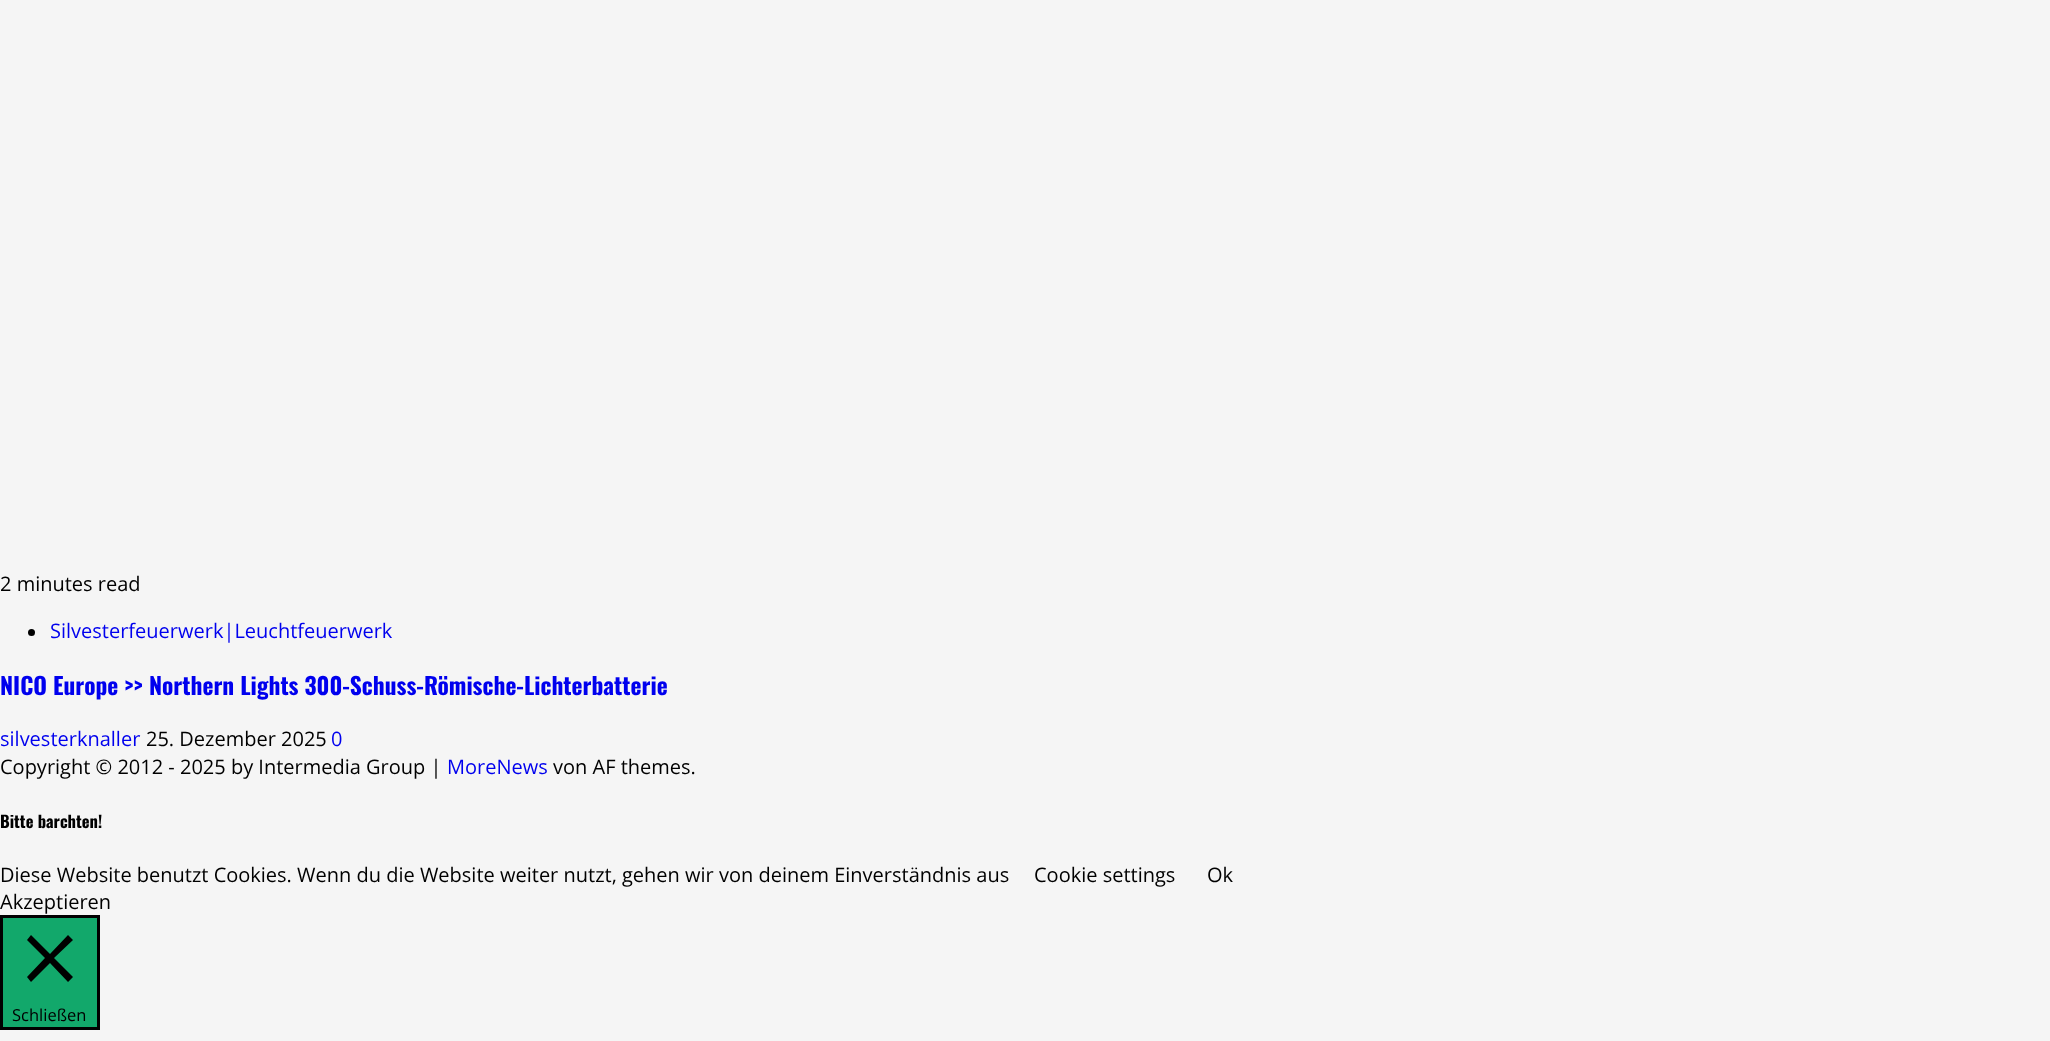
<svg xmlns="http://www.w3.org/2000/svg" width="2050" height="1041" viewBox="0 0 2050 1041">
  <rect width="100%" height="100%" fill="#f5f5f5"/>
  <text x="0" y="591" font-family="Open Sans" font-size="20" fill="#000000">2 minutes read</text>
  <circle cx="31.5" cy="632.5" r="3.5" fill="#000000"/>
  <text x="50" y="638" font-family="Open Sans" font-size="20" fill="#0000ee">Silvesterfeuerwerk|Leuchtfeuerwerk</text>
  <text x="0" y="695" font-family="Oswald" font-size="23.4" font-weight="bold" fill="#0000ee">NICO Europe &gt;&gt; Northern Lights 300-Schuss-Römische-Lichterbatterie</text>
  <text x="0" y="746" font-family="Open Sans" font-size="20" fill="#0000ee">silvesterknaller</text>
  <text x="146" y="746" font-family="Open Sans" font-size="20" fill="#000000">25. Dezember 2025</text>
  <text x="331" y="746" font-family="Open Sans" font-size="20" fill="#0000ee">0</text>
  <text x="0" y="774" font-family="Open Sans" font-size="20" fill="#000000">Copyright © 2012 - 2025 by Intermedia Group |</text>
  <text x="447" y="774" font-family="Open Sans" font-size="20" fill="#0000ee">MoreNews</text>
  <text x="553" y="774" font-family="Open Sans" font-size="20" fill="#000000">von AF themes.</text>
  <text x="0" y="828" font-family="Oswald" font-size="16.5" font-weight="bold" fill="#000000">Bitte barchten!</text>
  <text x="0" y="882" font-family="Open Sans" font-size="20" fill="#000000">Diese Website benutzt Cookies. Wenn du die Website weiter nutzt, gehen wir von deinem Einverständnis aus</text>
  <text x="1034" y="882" font-family="Open Sans" font-size="20" fill="#000000">Cookie settings</text>
  <text x="1207" y="882" font-family="Open Sans" font-size="20" fill="#000000">Ok</text>
  <text x="0" y="909" font-family="Open Sans" font-size="20" fill="#000000">Akzeptieren</text>
  <rect x="1.5" y="916.5" width="97" height="112" fill="#12a86b" stroke="#000000" stroke-width="3"/>
  <path d="M73 940L68 935L50 954L31 935L27 940L45 958L27 977L31 982L50 963L68 982L73 977L54 958Z" fill="#000000"/>
  <text x="12" y="1021" font-family="Open Sans" font-size="16.5" fill="#000000">Schließen</text>
</svg>
